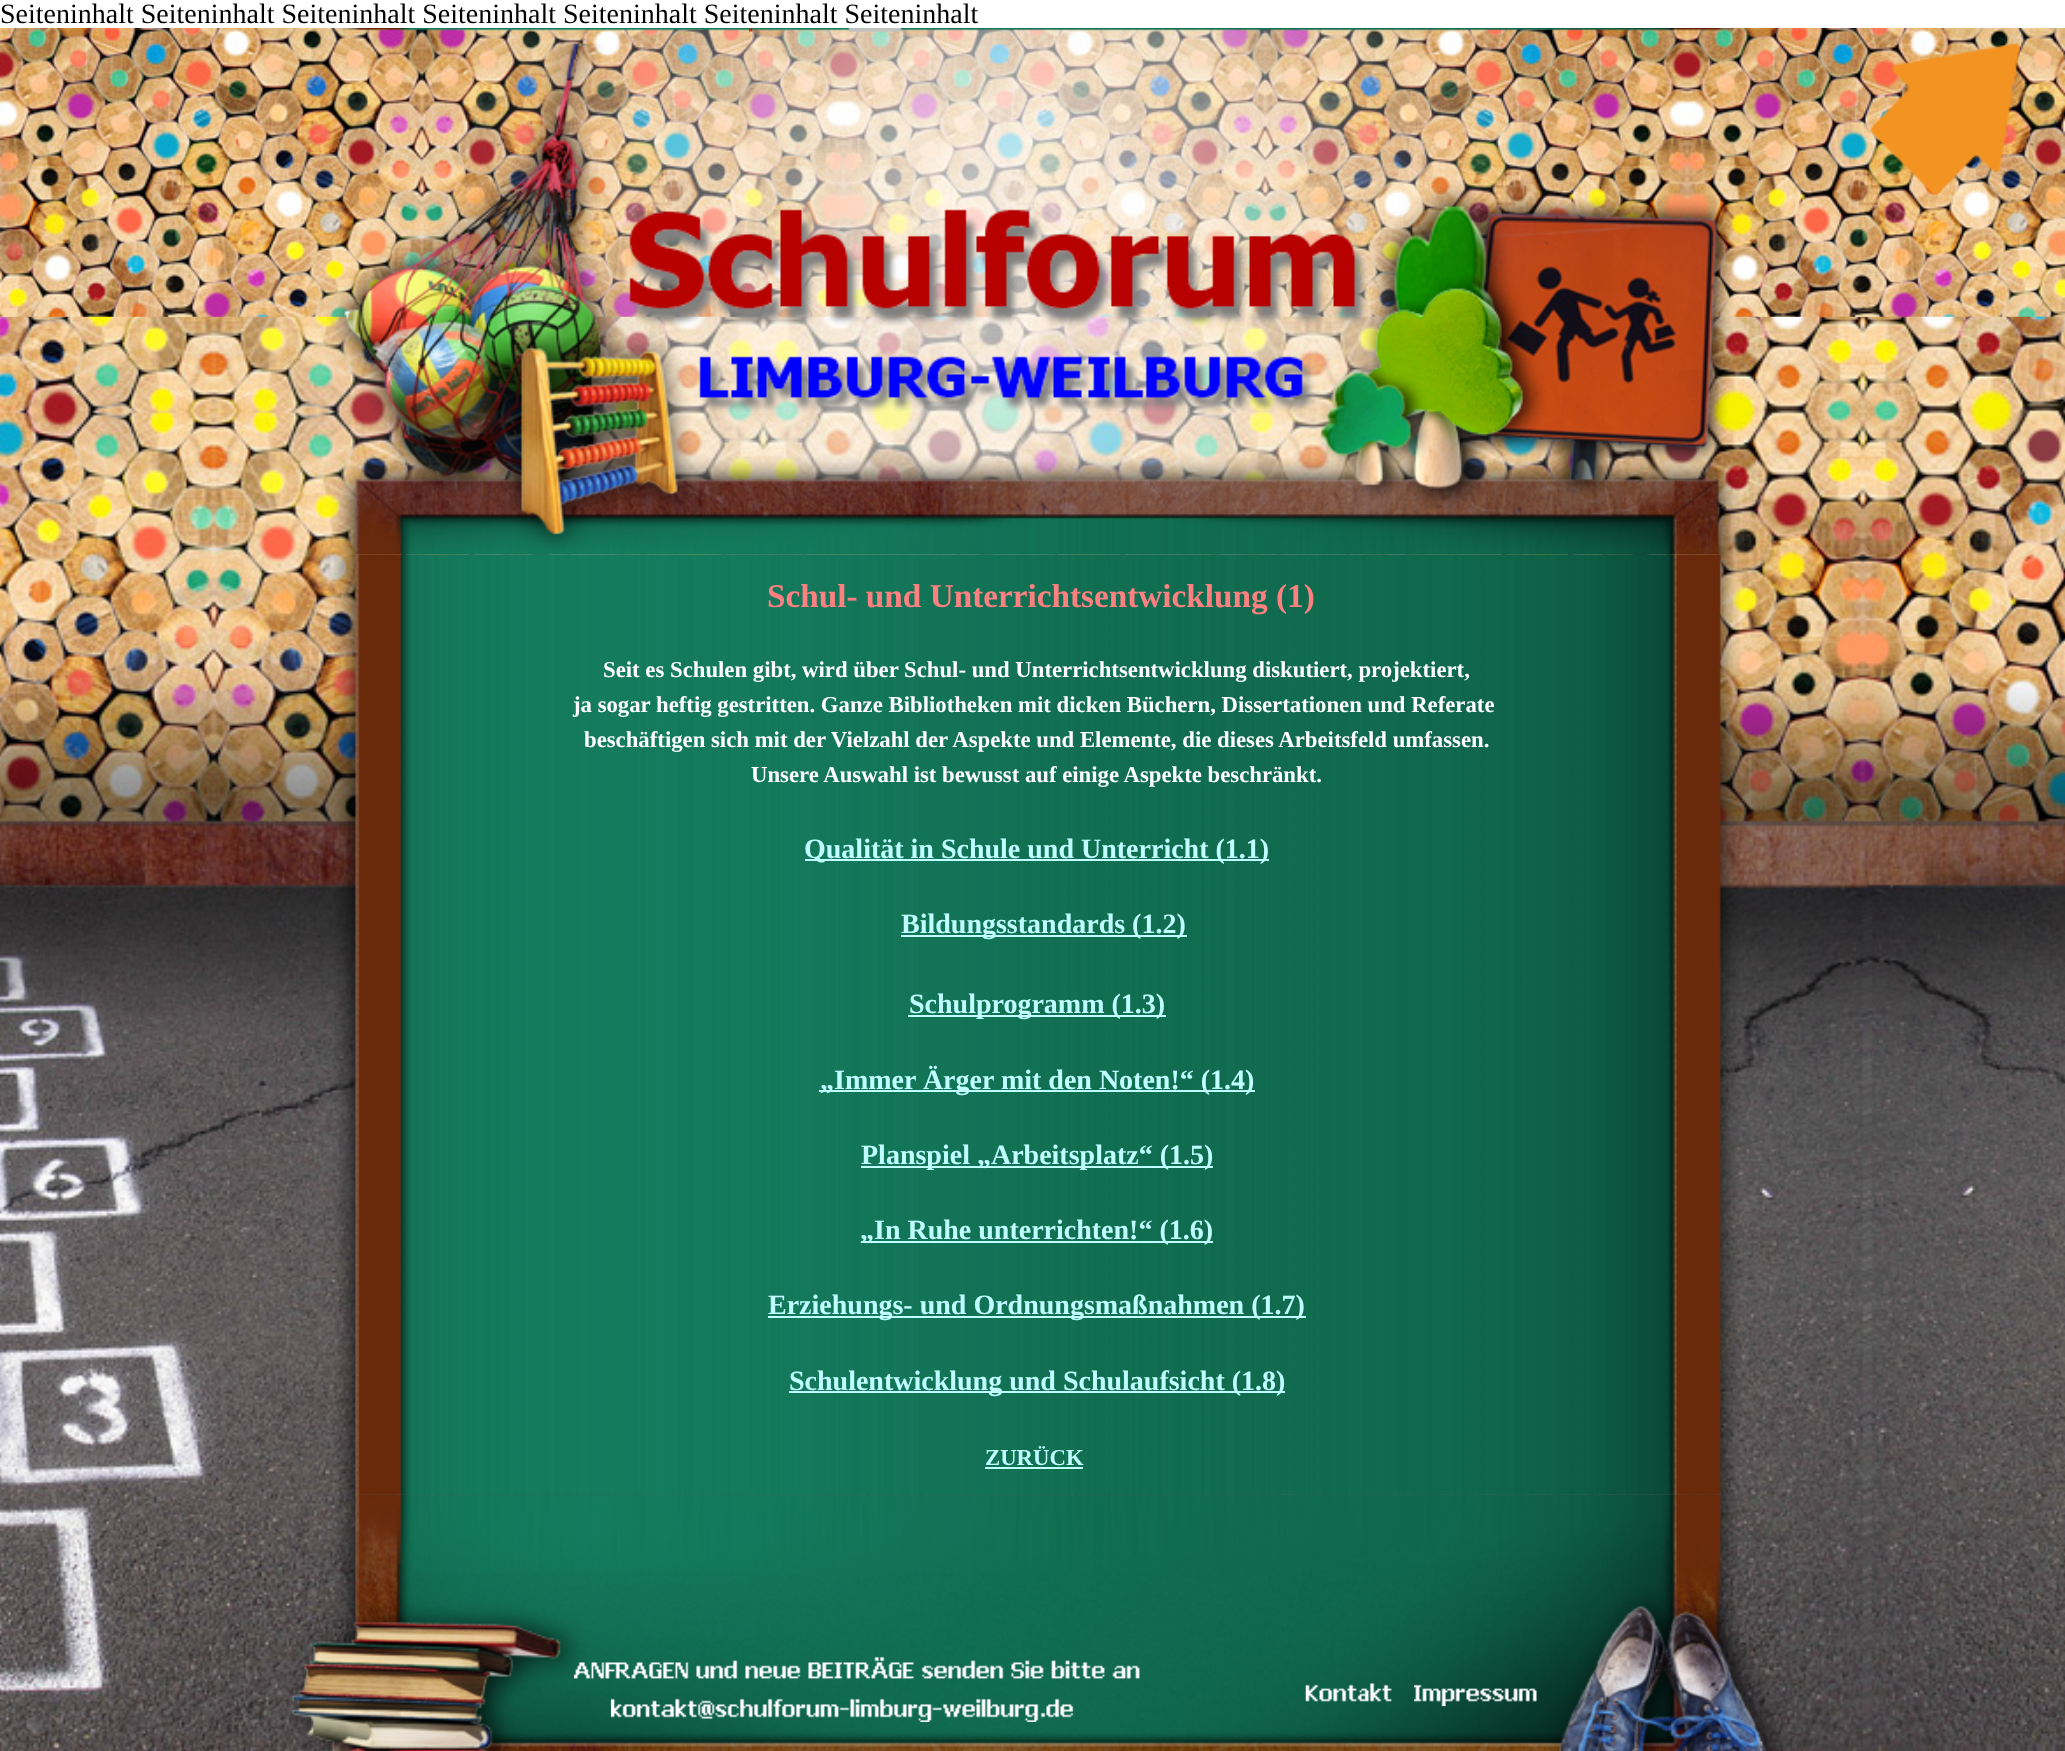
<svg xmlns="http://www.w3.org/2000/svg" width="2065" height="1751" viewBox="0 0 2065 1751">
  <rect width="100%" height="100%" fill="#ffffff"/>
  <text x="0" y="23" font-family="Liberation Serif" font-size="28" fill="#000000">Seiteninhalt Seiteninhalt Seiteninhalt Seiteninhalt Seiteninhalt Seiteninhalt Seiteninhalt</text>
  <image x="0" y="316" width="2065" height="1435" href="img2.png"/>
  <image x="0" y="28" width="2065" height="289" href="img3.png"/>
  <image x="1870" y="43" width="150" height="152" href="img1.png"/>
  <image x="327" y="28" width="1413" height="527" href="img4.png"/>
  <image x="749" y="28" width="4" height="4" href="img5.png"/>
  <image x="848" y="28" width="54" height="4" href="img6.png"/>
  <image x="629" y="209" width="739" height="117" href="img7.png"/>
  <image x="699" y="356" width="616" height="56" href="img8.png"/>
  <image x="334" y="554" width="1406" height="941" href="img9.png"/>
  <text x="767" y="607" font-family="Liberation Serif" font-size="33.25" font-weight="bold" fill="#ff8080">Schul- und Unterrichtsentwicklung (1)</text>
  <text x="603" y="677" font-family="Liberation Serif" font-size="22.75" font-weight="bold" fill="#ffffff">Seit es Schulen gibt, wird über Schul- und Unterrichtsentwicklung diskutiert, projektiert,</text>
  <text x="573" y="712" font-family="Liberation Serif" font-size="22.75" font-weight="bold" fill="#ffffff">ja sogar heftig gestritten. Ganze Bibliotheken mit dicken Büchern, Dissertationen und Referate</text>
  <text x="584" y="747" font-family="Liberation Serif" font-size="22.75" font-weight="bold" fill="#ffffff">beschäftigen sich mit der Vielzahl der Aspekte und Elemente, die dieses Arbeitsfeld umfassen.</text>
  <text x="751" y="782" font-family="Liberation Serif" font-size="22.75" font-weight="bold" fill="#ffffff">Unsere Auswahl ist bewusst auf einige Aspekte beschränkt.</text>
  <rect x="805" y="859" width="464" height="2" fill="#bfffff"/>
  <text x="804" y="858" font-family="Liberation Serif" font-size="28" font-weight="bold" fill="#bfffff">Qualität in Schule und Unterricht (1.1)</text>
  <rect x="901" y="935" width="286" height="2" fill="#bfffff"/>
  <text x="901" y="933" font-family="Liberation Serif" font-size="28" font-weight="bold" fill="#bfffff">Bildungsstandards (1.2)</text>
  <rect x="908" y="1015" width="258" height="2" fill="#bfffff"/>
  <text x="909" y="1013" font-family="Liberation Serif" font-size="28" font-weight="bold" fill="#bfffff">Schulprogramm (1.3)</text>
  <rect x="819" y="1090" width="436" height="2" fill="#bfffff"/>
  <text x="820" y="1089" font-family="Liberation Serif" font-size="28" font-weight="bold" fill="#bfffff">„Immer Ärger mit den Noten!“ (1.4)</text>
  <rect x="861" y="1166" width="352" height="2" fill="#bfffff"/>
  <text x="861" y="1164" font-family="Liberation Serif" font-size="28" font-weight="bold" fill="#bfffff">Planspiel „Arbeitsplatz“ (1.5)</text>
  <rect x="861" y="1241" width="352" height="2" fill="#bfffff"/>
  <text x="860" y="1239" font-family="Liberation Serif" font-size="28" font-weight="bold" fill="#bfffff">„In Ruhe unterrichten!“ (1.6)</text>
  <rect x="768" y="1316" width="538" height="2" fill="#bfffff"/>
  <text x="768" y="1314" font-family="Liberation Serif" font-size="28" font-weight="bold" fill="#bfffff">Erziehungs- und Ordnungsmaßnahmen (1.7)</text>
  <rect x="789" y="1391" width="496" height="2" fill="#bfffff"/>
  <text x="789" y="1390" font-family="Liberation Serif" font-size="28" font-weight="bold" fill="#bfffff">Schulentwicklung und Schulaufsicht (1.8)</text>
  <text x="985" y="1465" font-family="Liberation Serif" font-size="22.75" font-weight="bold" fill="#bfffff">ZURÜCK</text>
  <rect x="985" y="1467" width="98" height="2" fill="#bfffff"/>
  <image x="289" y="1494" width="1503" height="257" href="img10.png"/>
  <image x="574" y="1656" width="566" height="23" href="img11.png"/>
  <image x="1305" y="1683" width="87" height="19" href="img12.png"/>
  <image x="1414" y="1684" width="123" height="23" href="img13.png"/>
  <image x="610" y="1698" width="464" height="24" href="img14.png"/>
</svg>
